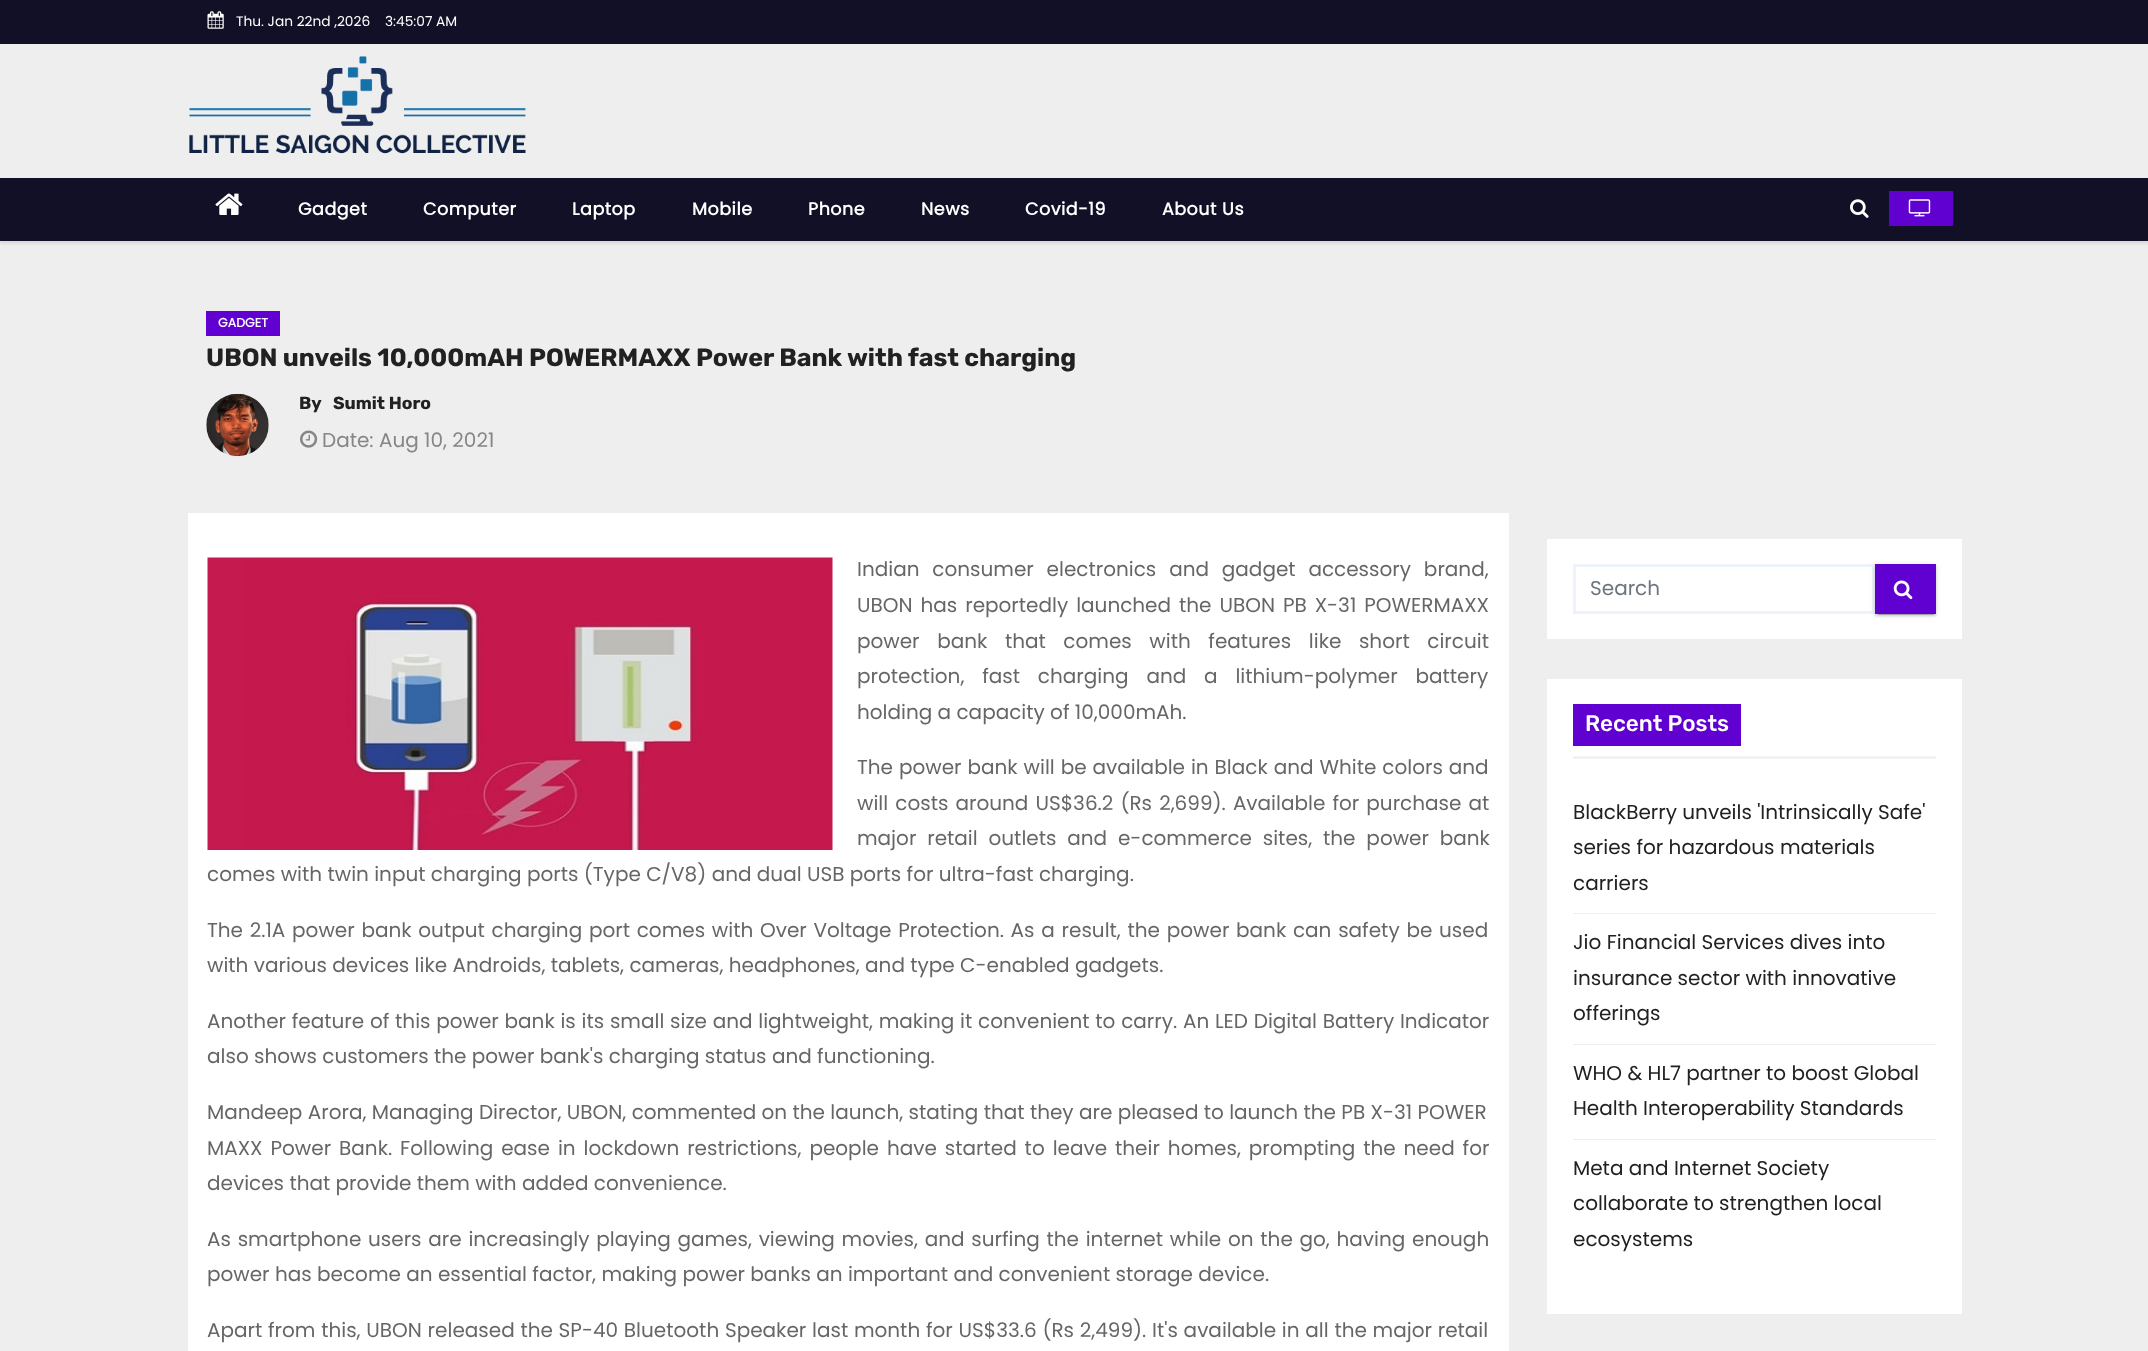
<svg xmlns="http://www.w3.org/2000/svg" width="2148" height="1351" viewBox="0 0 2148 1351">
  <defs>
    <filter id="blur1" x="-50%" y="-200%" width="200%" height="500%"><feGaussianBlur stdDeviation="1"/></filter>
    <filter id="blur2" x="-50%" y="-200%" width="200%" height="500%"><feGaussianBlur stdDeviation="3"/></filter>
    <filter id="blur3" x="-50%" y="-200%" width="200%" height="500%"><feGaussianBlur stdDeviation="0.5"/></filter>
  </defs>
  <rect width="100%" height="100%" fill="#eeeeee"/>
  <rect x="0" y="0" width="2148" height="44" fill="#121026"/>
  <image x="207" y="11" width="17" height="18" href="img1.png"/>
  <text x="236" y="26" font-family="Poppins" font-size="13.75" fill="#ffffff">Thu. Jan 22nd ,2026</text>
  <text x="385" y="26" font-family="Poppins" font-size="13.75" fill="#ffffff">3:45:07 AM</text>
  <image x="189" y="56" width="337" height="98" href="img2.png"/>
  <rect x="0" y="180" width="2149" height="64" fill="#000000" fill-opacity="0.08" filter="url(#blur1)"/>
  <rect x="0" y="178" width="2148" height="63" fill="#121026"/>
  <image x="215" y="193" width="28" height="22" href="img3.png"/>
  <text x="298" y="215" font-family="Poppins" font-size="17.5" font-weight="bold" letter-spacing="0.5" fill="#ffffff">Gadget</text>
  <text x="423" y="215" font-family="Poppins" font-size="17.5" font-weight="bold" letter-spacing="0.5" fill="#ffffff">Computer</text>
  <text x="572" y="215" font-family="Poppins" font-size="17.5" font-weight="bold" letter-spacing="0.5" fill="#ffffff">Laptop</text>
  <text x="692" y="215" font-family="Poppins" font-size="17.5" font-weight="bold" letter-spacing="0.5" fill="#ffffff">Mobile</text>
  <text x="808" y="215" font-family="Poppins" font-size="17.5" font-weight="bold" letter-spacing="0.5" fill="#ffffff">Phone</text>
  <text x="921" y="215" font-family="Poppins" font-size="17.5" font-weight="bold" letter-spacing="0.5" fill="#ffffff">News</text>
  <text x="1025" y="215" font-family="Poppins" font-size="17.5" font-weight="bold" letter-spacing="0.5" fill="#ffffff">Covid-19</text>
  <text x="1162" y="215" font-family="Poppins" font-size="17.5" font-weight="bold" letter-spacing="0.5" fill="#ffffff">About Us</text>
  <image x="1850" y="199" width="19" height="19" href="img4.png"/>
  <rect x="1889" y="191" width="64" height="35" fill="#6001d2"/>
  <image x="1908" y="199" width="23" height="18" href="img5.png"/>
  <rect x="206" y="311" width="74" height="25" fill="#6001d2"/>
  <text x="218" y="327" font-family="Poppins" font-size="12.5" font-weight="bold" fill="#ffffff">GADGET</text>
  <text x="206" y="366" font-family="Rubik" font-size="25" font-weight="bold" fill="#212121">UBON unveils 10,000mAH POWERMAXX Power Bank with fast charging</text>
  <image x="206" y="393" width="63" height="64" href="img6.png"/>
  <text x="299" y="409" font-family="Rubik" font-size="17.5" font-weight="bold" fill="#212121">By</text>
  <text x="333" y="409" font-family="Rubik" font-size="17.5" font-weight="bold" fill="#212121">Sumit Horo</text>
  <image x="300" y="430" width="18" height="18" href="img7.png"/>
  <text x="322" y="447" font-family="Poppins" font-size="20" fill="#868686">Date: Aug 10, 2021</text>
  <rect x="188" y="513" width="1321" height="838" fill="#ffffff"/>
  <image x="207" y="557" width="626" height="293" href="img8.png"/>
  <text x="857" y="576" word-spacing="7.5" font-family="Poppins" font-size="20" fill="#666666">Indian consumer electronics and gadget accessory brand,</text>
  <text x="857" y="612" word-spacing="2.6" font-family="Poppins" font-size="20" fill="#666666">UBON has reportedly launched the UBON PB X-31 POWERMAXX</text>
  <text x="857" y="648" word-spacing="12.25" font-family="Poppins" font-size="20" fill="#666666">power bank that comes with features like short circuit</text>
  <text x="857" y="683" word-spacing="12.5" font-family="Poppins" font-size="20" fill="#666666">protection, fast charging and a lithium-polymer battery</text>
  <text x="857" y="719" font-family="Poppins" font-size="20" fill="#666666">holding a capacity of 10,000mAh.</text>
  <text x="857" y="774" word-spacing="0.6" font-family="Poppins" font-size="20" fill="#666666">The power bank will be available in Black and White colors and</text>
  <text x="857" y="810" word-spacing="1.75" font-family="Poppins" font-size="20" fill="#666666">will costs around US$36.2 (Rs 2,699). Available for purchase at</text>
  <text x="857" y="845" word-spacing="5.5" font-family="Poppins" font-size="20" fill="#666666">major retail outlets and e-commerce sites, the power bank</text>
  <text x="207" y="881" font-family="Poppins" font-size="20" fill="#666666">comes with twin input charging ports (Type C/V8) and dual USB ports for ultra-fast charging.</text>
  <text x="207" y="937" word-spacing="1.4" font-family="Poppins" font-size="20" fill="#666666">The 2.1A power bank output charging port comes with Over Voltage Protection. As a result, the power bank can safety be used</text>
  <text x="207" y="972" font-family="Poppins" font-size="20" fill="#666666">with various devices like Androids, tablets, cameras, headphones, and type C-enabled gadgets.</text>
  <text x="207" y="1028" word-spacing="0.4" font-family="Poppins" font-size="20" fill="#666666">Another feature of this power bank is its small size and lightweight, making it convenient to carry. An LED Digital Battery Indicator</text>
  <text x="207" y="1063" font-family="Poppins" font-size="20" fill="#666666">also shows customers the power bank's charging status and functioning.</text>
  <text x="207" y="1119" font-family="Poppins" font-size="20" fill="#666666">Mandeep Arora, Managing Director, UBON, commented on the launch, stating that they are pleased to launch the PB X-31 POWER</text>
  <text x="207" y="1155" word-spacing="2.6" font-family="Poppins" font-size="20" fill="#666666">MAXX Power Bank. Following ease in lockdown restrictions, people have started to leave their homes, prompting the need for</text>
  <text x="207" y="1190" font-family="Poppins" font-size="20" fill="#666666">devices that provide them with added convenience.</text>
  <text x="207" y="1246" word-spacing="1.4" font-family="Poppins" font-size="20" fill="#666666">As smartphone users are increasingly playing games, viewing movies, and surfing the internet while on the go, having enough</text>
  <text x="207" y="1281" font-family="Poppins" font-size="20" fill="#666666">power has become an essential factor, making power banks an important and convenient storage device.</text>
  <text x="207" y="1337" word-spacing="0.4" font-family="Poppins" font-size="20" fill="#666666">Apart from this, UBON released the SP-40 Bluetooth Speaker last month for US$33.6 (Rs 2,499). It's available in all the major retail</text>
  <rect x="1547" y="539" width="415" height="100" fill="#ffffff"/>
  <rect x="1574.5" y="565.5" width="299" height="47" fill="none" stroke="#eef3fb" stroke-width="3"/>
  <text x="1590" y="595" font-family="Poppins" font-size="20" fill="#6c757d">Search</text>
  <rect x="1875" y="565" width="61" height="50" fill="#000000" fill-opacity="0.12" filter="url(#blur2)"/>
  <rect x="1878" y="570" width="56" height="45" fill="#000000" fill-opacity="0.2" filter="url(#blur3)"/>
  <rect x="1875" y="566" width="61" height="50" fill="#000000" fill-opacity="0.14" filter="url(#blur1)"/>
  <rect x="1875" y="564" width="61" height="50" fill="#6001d2"/>
  <image x="1893" y="580" width="20" height="20" href="img9.png"/>
  <rect x="1547" y="679" width="415" height="635" fill="#ffffff"/>
  <rect x="1573" y="756" width="363" height="3" fill="#f2f2f2"/>
  <rect x="1573" y="704" width="168" height="42" fill="#6001d2"/>
  <text x="1585" y="731" font-family="Rubik" font-size="22.5" font-weight="500" fill="#ffffff">Recent Posts</text>
  <rect x="1573" y="913" width="363" height="1" fill="#eeeeee"/>
  <text x="1573" y="819" font-family="Poppins" font-size="20" fill="#212121">BlackBerry unveils 'Intrinsically Safe'</text>
  <text x="1573" y="854" font-family="Poppins" font-size="20" fill="#212121">series for hazardous materials</text>
  <text x="1573" y="890" font-family="Poppins" font-size="20" fill="#212121">carriers</text>
  <rect x="1573" y="1044" width="363" height="1" fill="#eeeeee"/>
  <text x="1573" y="949" font-family="Poppins" font-size="20" fill="#212121">Jio Financial Services dives into</text>
  <text x="1573" y="985" font-family="Poppins" font-size="20" fill="#212121">insurance sector with innovative</text>
  <text x="1573" y="1020" font-family="Poppins" font-size="20" fill="#212121">offerings</text>
  <rect x="1573" y="1139" width="363" height="1" fill="#eeeeee"/>
  <text x="1573" y="1080" font-family="Poppins" font-size="20" fill="#212121">WHO &amp; HL7 partner to boost Global</text>
  <text x="1573" y="1115" font-family="Poppins" font-size="20" fill="#212121">Health Interoperability Standards</text>
  <text x="1573" y="1175" font-family="Poppins" font-size="20" fill="#212121">Meta and Internet Society</text>
  <text x="1573" y="1210" font-family="Poppins" font-size="20" fill="#212121">collaborate to strengthen local</text>
  <text x="1573" y="1246" font-family="Poppins" font-size="20" fill="#212121">ecosystems</text>
</svg>
